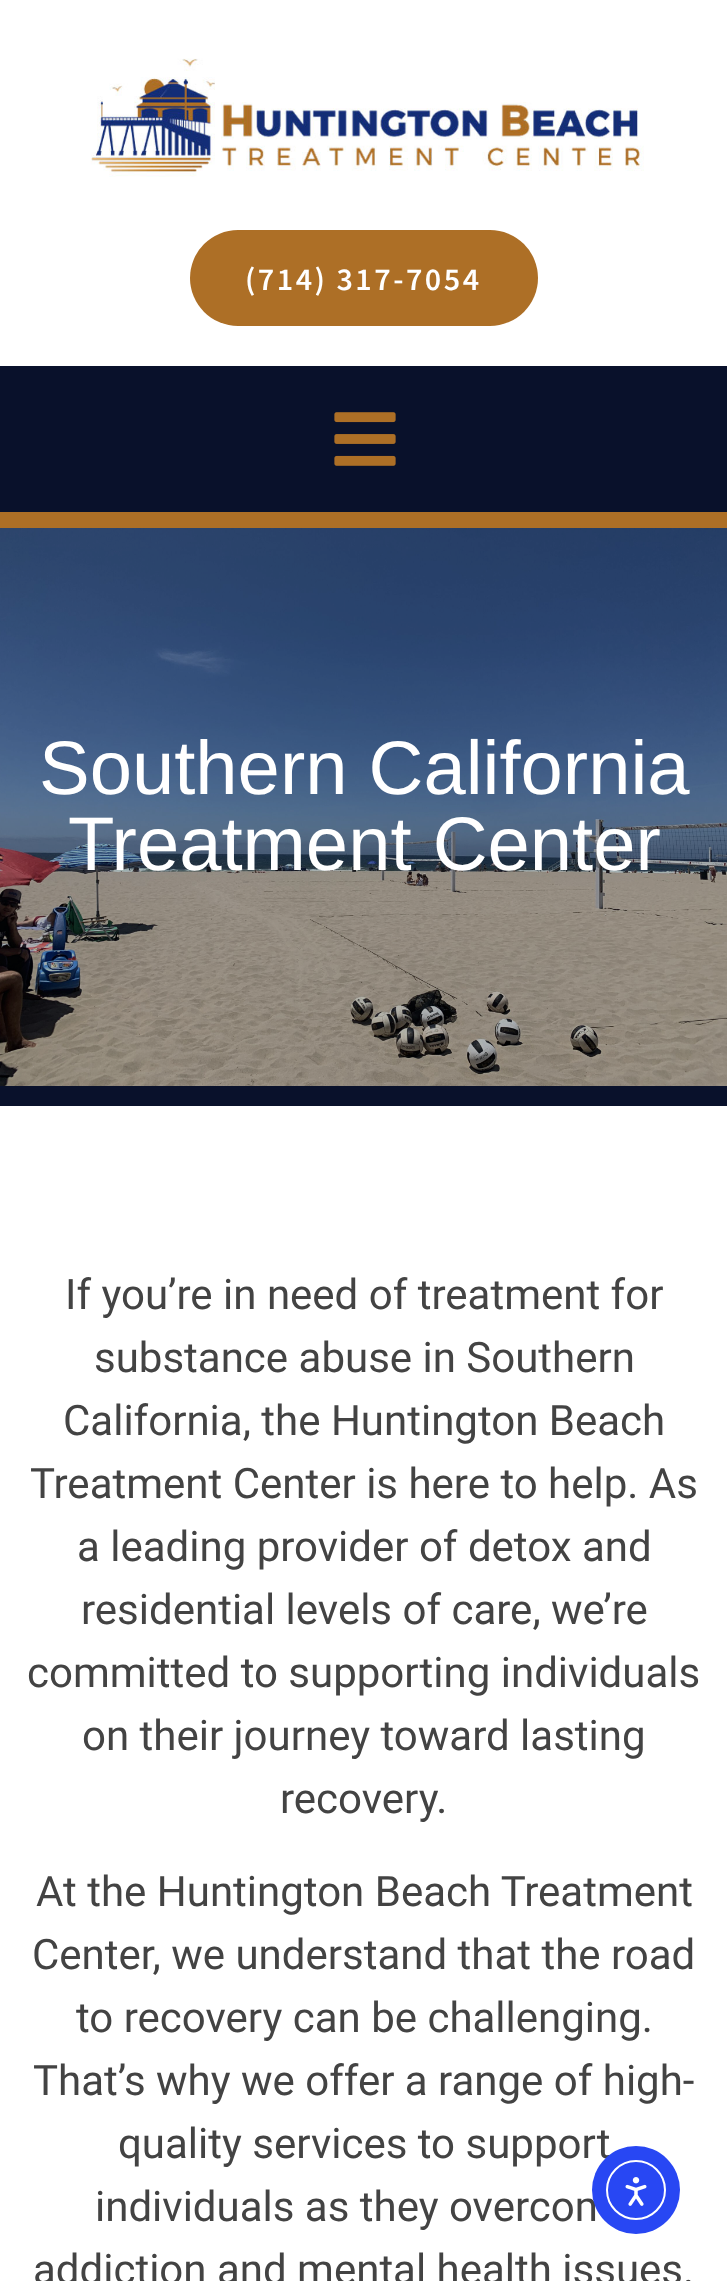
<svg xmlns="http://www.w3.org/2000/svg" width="727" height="2281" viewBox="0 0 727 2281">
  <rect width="100%" height="100%" fill="#ffffff"/>
  <image x="90" y="58" width="554" height="119" href="img1.png"/>
  <rect x="190" y="230" width="348" height="96" rx="48" fill="#ad6f26"/>
  <text x="245" y="290" font-family="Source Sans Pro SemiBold" font-size="32" font-weight="600" letter-spacing="2.5" fill="#ffffff">(714) 317-7054</text>
  <rect x="0" y="366" width="727" height="146" fill="#09112b"/>
  <rect x="0" y="512" width="727" height="16" fill="#ad6f26"/>
  <image x="334" y="412" width="62" height="54" href="img2.png"/>
  <image x="0" y="528" width="727" height="558" href="img3.png"/>
  <rect x="0" y="1086" width="727" height="20" fill="#09112b"/>
  <text x="39" y="794" font-family="Liberation Sans" font-size="76" fill="#ffffff">Southern California</text>
  <text x="68" y="870" font-family="Liberation Sans" font-size="76" fill="#ffffff">Treatment Center</text>
  <text x="65" y="1309" font-family="Roboto" font-size="42" fill="#434343">If you’re in need of treatment for</text>
  <text x="94" y="1372" font-family="Roboto" font-size="42" fill="#434343">substance abuse in Southern</text>
  <text x="63" y="1435" font-family="Roboto" font-size="42" fill="#434343">California, the Huntington Beach</text>
  <text x="30" y="1498" font-family="Roboto" font-size="42" fill="#434343">Treatment Center is here to help. As</text>
  <text x="77" y="1561" font-family="Roboto" font-size="42" fill="#434343">a leading provider of detox and</text>
  <text x="81" y="1624" font-family="Roboto" font-size="42" fill="#434343">residential levels of care, we’re</text>
  <text x="27" y="1687" font-family="Roboto" font-size="42" fill="#434343">committed to supporting individuals</text>
  <text x="82" y="1750" font-family="Roboto" font-size="42" fill="#434343">on their journey toward lasting</text>
  <text x="280" y="1813" font-family="Roboto" font-size="42" fill="#434343">recovery.</text>
  <text x="36" y="1906" font-family="Roboto" font-size="42" fill="#434343">At the Huntington Beach Treatment</text>
  <text x="32" y="1969" font-family="Roboto" font-size="42" fill="#434343">Center, we understand that the road</text>
  <text x="76" y="2032" font-family="Roboto" font-size="42" fill="#434343">to recovery can be challenging.</text>
  <text x="33" y="2095" font-family="Roboto" font-size="42" fill="#434343">That’s why we offer a range of high-</text>
  <text x="118" y="2158" font-family="Roboto" font-size="42" fill="#434343">quality services to support</text>
  <text x="95" y="2221" font-family="Roboto" font-size="42" fill="#434343">individuals as they overcom</text>
  <text x="33" y="2284" font-family="Roboto" font-size="42" fill="#434343">addiction and mental health issues.</text>
  <circle cx="636" cy="2190" r="44" fill="#2847f3"/>
  <circle cx="636" cy="2190" r="29" fill="none" stroke="#ffffff" stroke-width="2"/>
  <image x="625" y="2177" width="22" height="29" href="img4.png"/>
</svg>
